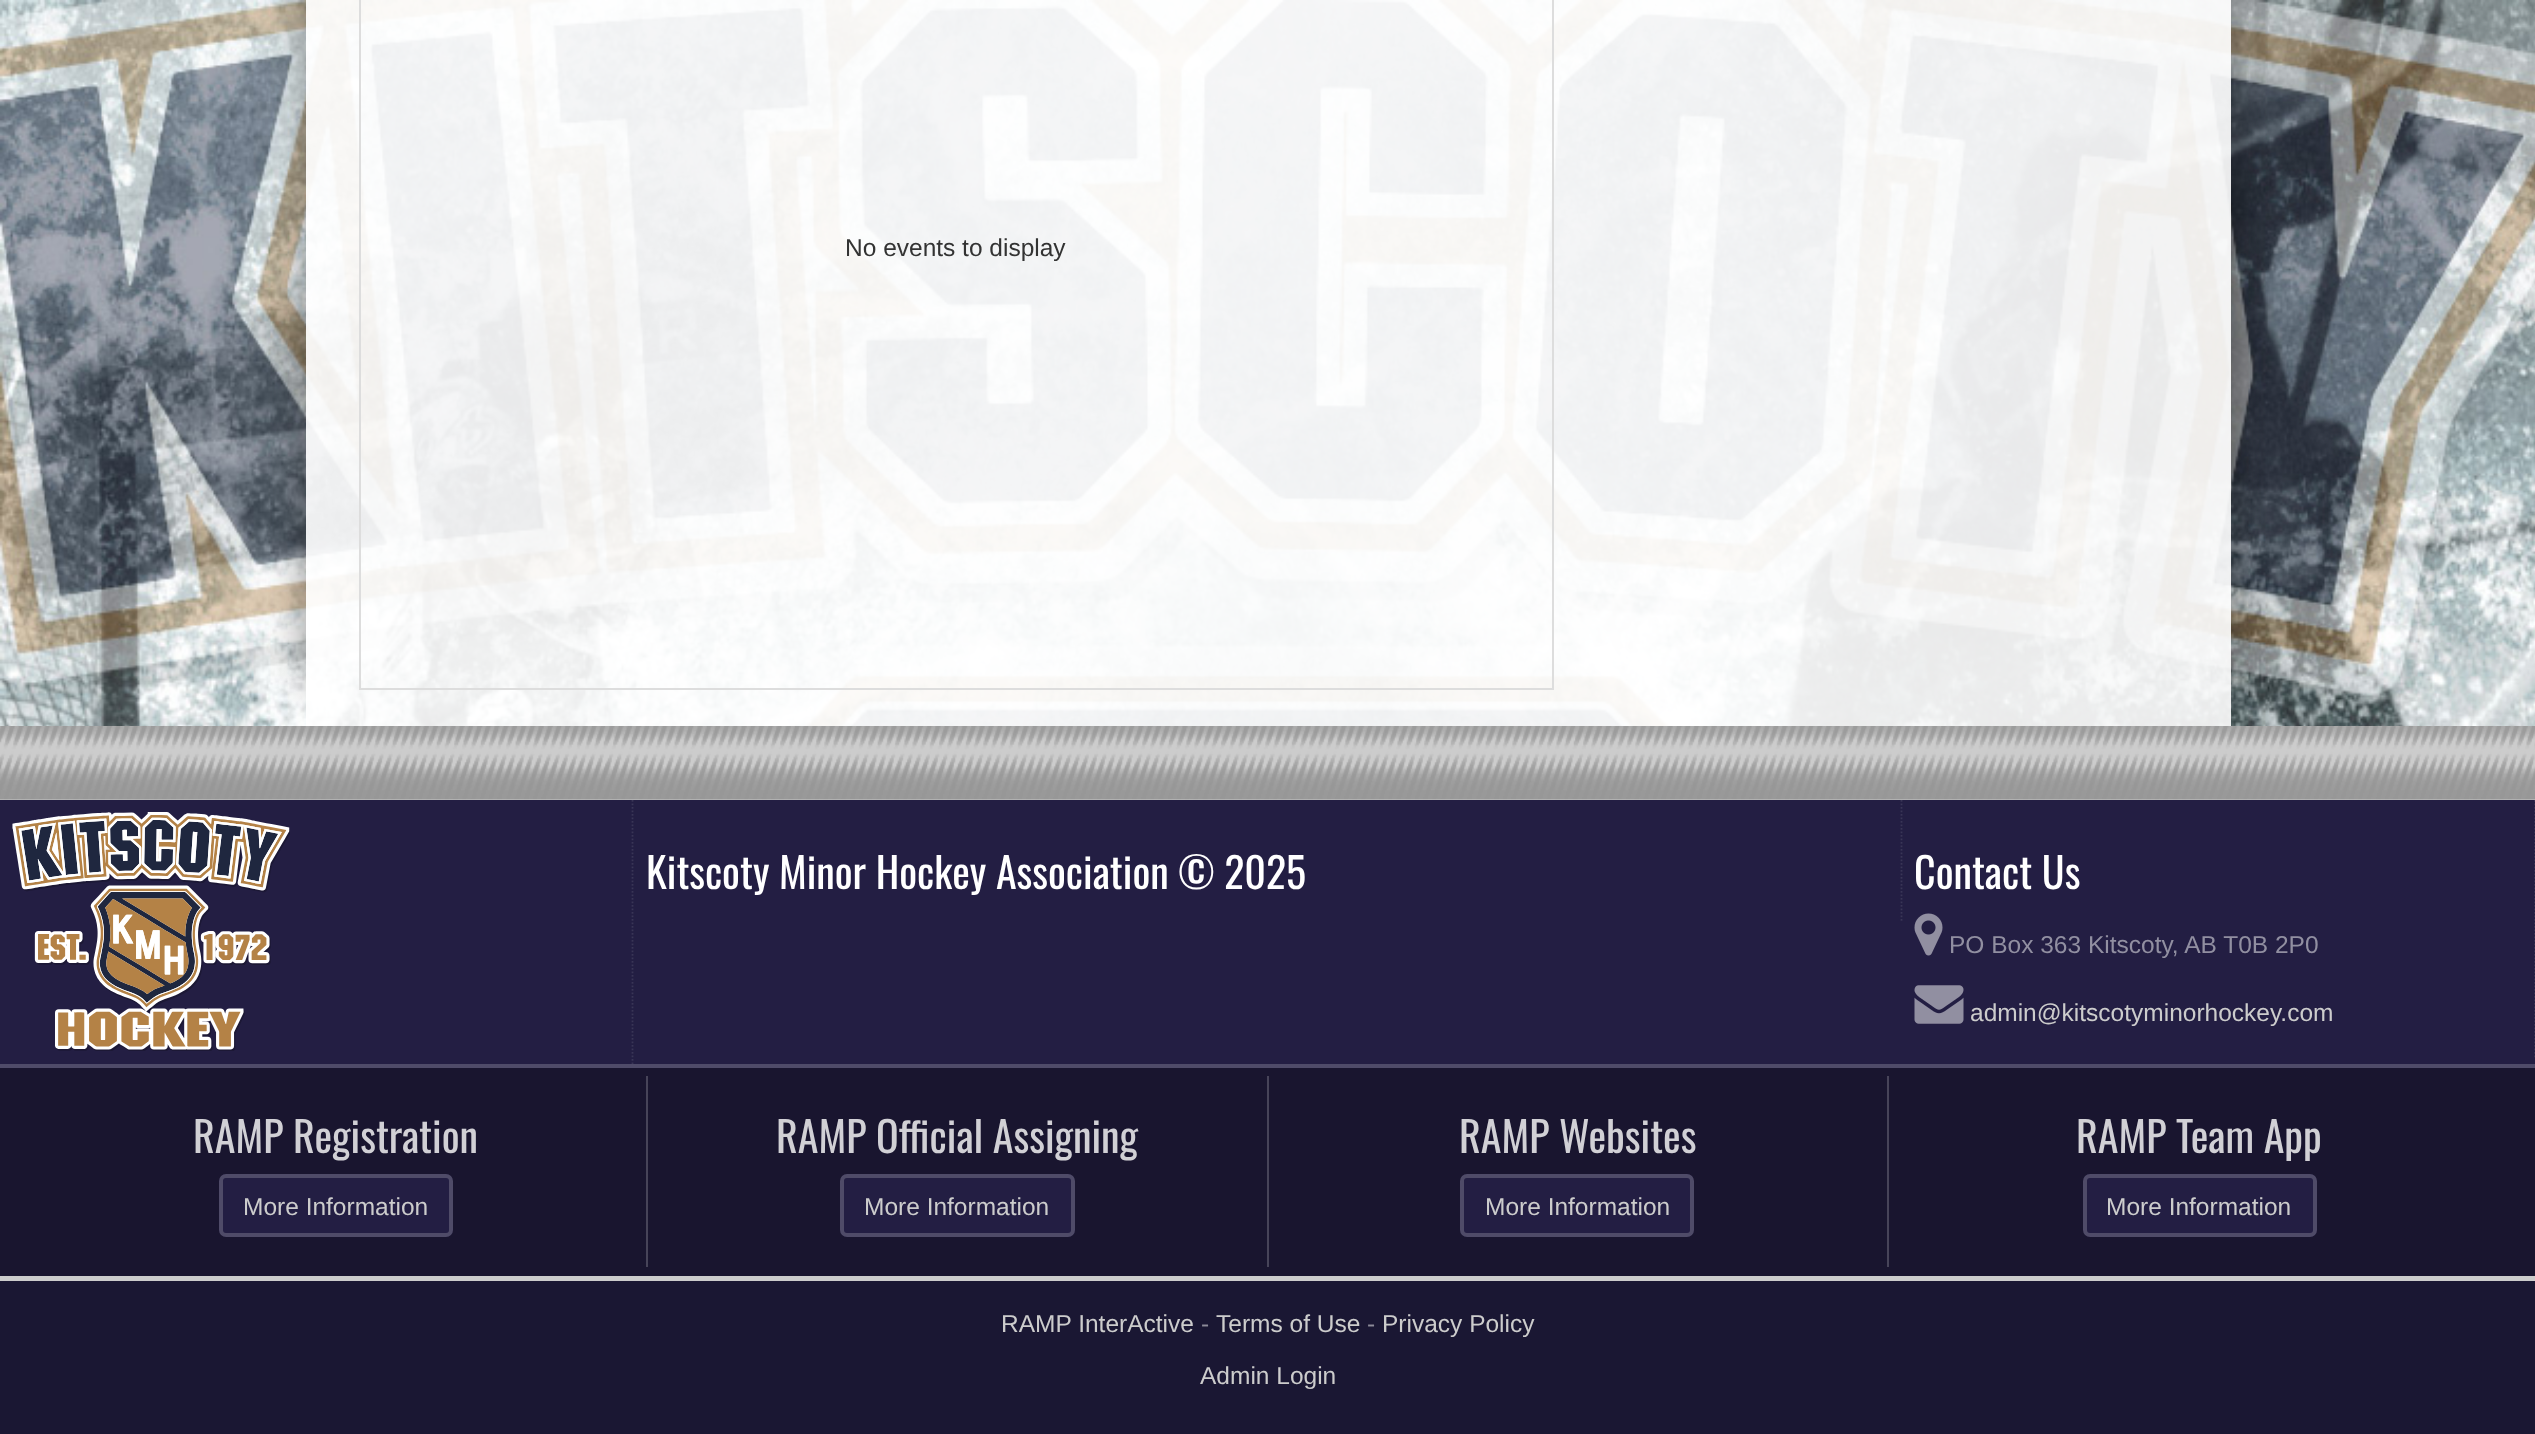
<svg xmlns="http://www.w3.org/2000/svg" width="2535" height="1434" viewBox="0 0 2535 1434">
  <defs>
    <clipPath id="clip1"><path d="M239 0H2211V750H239ZM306-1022H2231V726H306Z" clip-rule="evenodd"/></clipPath>
    <filter id="blur1" x="-50%" y="-200%" width="200%" height="500%"><feGaussianBlur stdDeviation="22"/></filter>
    <clipPath id="clip2"><rect x="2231" y="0" width="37" height="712"/></clipPath>
  </defs>
  <rect width="100%" height="100%" fill="#ffffff"/>
  <image x="0" y="0" width="2535" height="726" href="img1.png"/>
  <g clip-path="url(#clip1)">
    <rect x="306" y="-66" width="1838" height="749" fill="#000000" fill-opacity="0.45" filter="url(#blur1)"/>
  </g>
  <g clip-path="url(#clip2)">
    <rect x="394" y="-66" width="1837" height="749" fill="#000000" fill-opacity="0.45" filter="url(#blur1)"/>
  </g>
  <rect x="306" y="0" width="1925" height="726" fill="#ffffff" fill-opacity="0.9"/>
  <rect x="360" y="-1" width="1193" height="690" fill="none" stroke="#dddddd" stroke-width="2"/>
  <text x="845" y="256" font-family="Liberation Sans" font-size="24.5" fill="#333333">No events to display</text>
  <rect x="0" y="726" width="2535" height="74" fill="#cccccc"/>
  <image x="0" y="726" width="2535" height="74" href="img2.png"/>
  <rect x="0" y="800" width="2535" height="264" fill="#231e43"/>
  <path d="M632.5 800V1064" fill="none" stroke="#393556" stroke-width="1.8" stroke-dasharray="1.75 1.75"/>
  <image x="12" y="812" width="278" height="239" href="img3.png"/>
  <path d="M1901.5 800V922" fill="none" stroke="#393556" stroke-width="1.8" stroke-dasharray="1.75 1.75"/>
  <text x="646" y="889" font-family="Oswald" font-size="42" fill="#ffffff">Kitscoty Minor Hockey Association © 2025</text>
  <path d="M2535 800V1059" fill="none" stroke="#393556" stroke-width="1.8" stroke-dasharray="1.75 1.75"/>
  <text x="1914" y="889" font-family="Oswald" font-size="42" fill="#ffffff">Contact Us</text>
  <image x="1914" y="913" width="29" height="43" href="img4.png"/>
  <text x="1949" y="953" font-family="Liberation Sans" font-size="24.5" fill="#918fa1">PO Box 363 Kitscoty, AB T0B 2P0</text>
  <image x="1914" y="985" width="50" height="39" href="img5.png"/>
  <text x="1970" y="1021" font-family="Liberation Sans" font-size="24.5" fill="#cccccc">admin@kitscotyminorhockey.com</text>
  <rect x="0" y="1064" width="2535" height="4" fill="#4f4b69"/>
  <rect x="0" y="1068" width="2535" height="208" fill="#19152f"/>
  <rect x="646" y="1076" width="2" height="191" fill="#474459"/>
  <text x="193" y="1153" font-family="Oswald" font-size="42" fill="#d1d0d5">RAMP Registration</text>
  <rect x="219" y="1174" width="234" height="63" rx="7" fill="#231e43"/>
  <rect x="221" y="1176" width="230" height="59" rx="5" fill="none" stroke="#ffffff" stroke-opacity="0.2" stroke-width="4"/>
  <text x="243" y="1215" font-family="Liberation Sans" font-size="24.5" fill="#cccccc">More Information</text>
  <rect x="1267" y="1076" width="2" height="191" fill="#474459"/>
  <text x="776" y="1153" font-family="Oswald" font-size="42" fill="#d1d0d5">RAMP Official Assigning</text>
  <rect x="840" y="1174" width="235" height="63" rx="7" fill="#231e43"/>
  <rect x="842" y="1176" width="231" height="59" rx="5" fill="none" stroke="#ffffff" stroke-opacity="0.2" stroke-width="4"/>
  <text x="864" y="1215" font-family="Liberation Sans" font-size="24.5" fill="#cccccc">More Information</text>
  <rect x="1887" y="1076" width="2" height="191" fill="#474459"/>
  <text x="1459" y="1153" font-family="Oswald" font-size="42" fill="#d1d0d5">RAMP Websites</text>
  <rect x="1460" y="1174" width="234" height="63" rx="7" fill="#231e43"/>
  <rect x="1462" y="1176" width="230" height="59" rx="5" fill="none" stroke="#ffffff" stroke-opacity="0.2" stroke-width="4"/>
  <text x="1485" y="1215" font-family="Liberation Sans" font-size="24.5" fill="#cccccc">More Information</text>
  <text x="2076" y="1153" font-family="Oswald" font-size="42" fill="#d1d0d5">RAMP Team App</text>
  <rect x="2083" y="1174" width="234" height="63" rx="7" fill="#231e43"/>
  <rect x="2085" y="1176" width="230" height="59" rx="5" fill="none" stroke="#ffffff" stroke-opacity="0.2" stroke-width="4"/>
  <text x="2106" y="1215" font-family="Liberation Sans" font-size="24.5" fill="#cccccc">More Information</text>
  <rect x="0" y="1276" width="2535" height="5" fill="#cccccc"/>
  <rect x="0" y="1281" width="2535" height="153" fill="#1a1733"/>
  <text x="1001" y="1332" font-family="Liberation Sans" font-size="24.5" fill="#cccccc">RAMP InterActive</text>
  <text x="1201" y="1332" font-family="Liberation Sans" font-size="24.5" fill="#8d8b99">-</text>
  <text x="1216" y="1332" font-family="Liberation Sans" font-size="24.5" fill="#cccccc">Terms of Use</text>
  <text x="1367" y="1332" font-family="Liberation Sans" font-size="24.5" fill="#8d8b99">-</text>
  <text x="1382" y="1332" font-family="Liberation Sans" font-size="24.5" fill="#cccccc">Privacy Policy</text>
  <text x="1200" y="1384" font-family="Liberation Sans" font-size="24.5" fill="#cccccc">Admin Login</text>
</svg>
